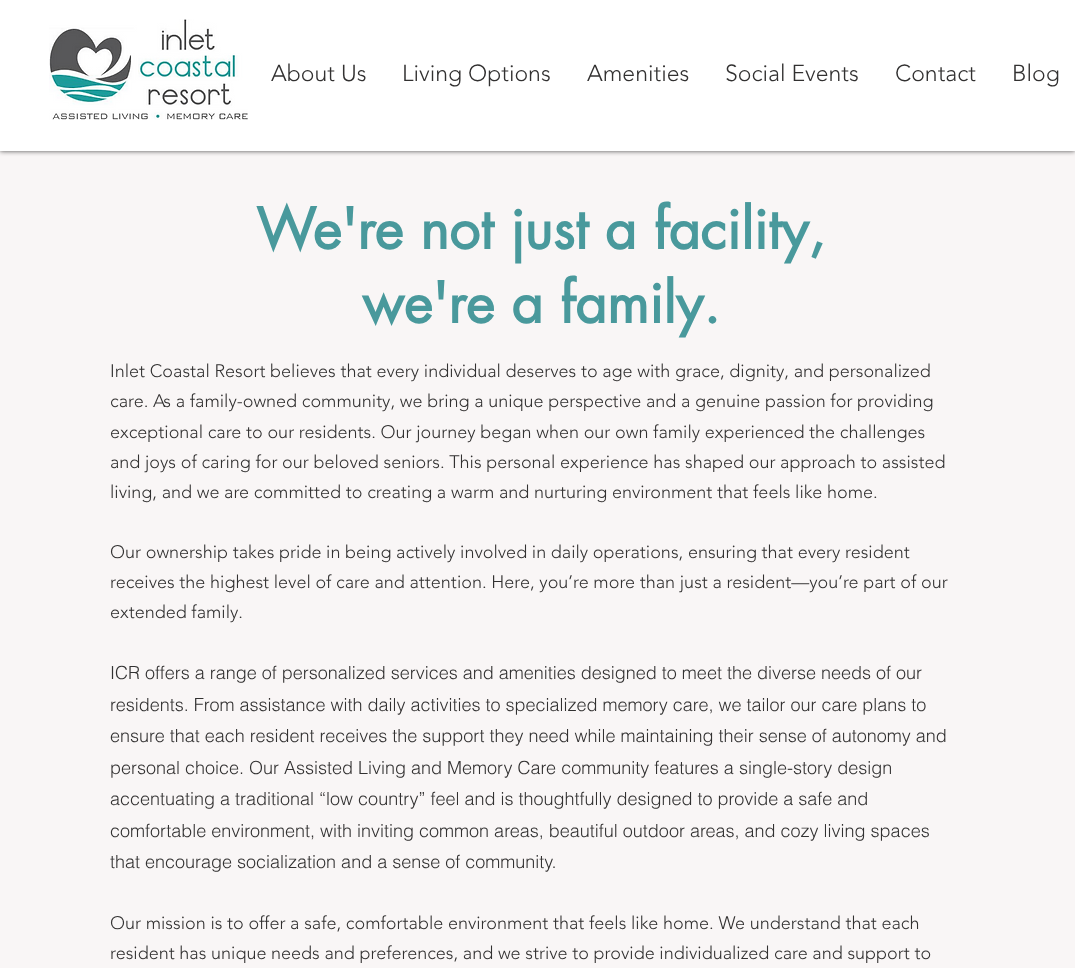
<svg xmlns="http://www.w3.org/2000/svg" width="1075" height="968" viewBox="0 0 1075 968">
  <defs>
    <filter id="blur1" x="-50%" y="-200%" width="200%" height="500%"><feGaussianBlur stdDeviation="2.5"/></filter>
  </defs>
  <rect width="100%" height="100%" fill="#f9f6f6"/>
  <rect x="0" y="0" width="1075" height="151" fill="#000000" fill-opacity="0.7" filter="url(#blur1)"/>
  <rect x="0" y="0" width="1075" height="151" fill="#ffffff"/>
  <image x="49" y="19" width="199" height="101" href="img1.png"/>
  <text x="271" y="81" font-family="'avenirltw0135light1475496'" font-size="23" font-weight="300" fill="#323131">About Us</text>
  <text x="402" y="81" font-family="'avenirltw0135light1475496'" font-size="23" font-weight="300" fill="#323131">Living Options</text>
  <text x="587" y="81" font-family="'avenirltw0135light1475496'" font-size="23" font-weight="300" fill="#323131">Amenities</text>
  <text x="725" y="81" font-family="'avenirltw0135light1475496'" font-size="23" font-weight="300" fill="#323131">Social Events</text>
  <text x="895" y="81" font-family="'avenirltw0135light1475496'" font-size="23" font-weight="300" fill="#323131">Contact</text>
  <text x="1012" y="81" font-family="'avenirltw0135light1475496'" font-size="23" font-weight="300" fill="#323131">Blog</text>
  <text x="256" y="249" font-family="futura" font-size="55" font-weight="bold" fill="#49999c">We're not just a facility,</text>
  <text x="362" y="323" font-family="futura" font-size="55" font-weight="bold" fill="#49999c">we're a family.</text>
  <text x="110" y="377" font-family="'avenirltw0135light1475496'" font-size="18" font-weight="300" fill="#323131">Inlet Coastal Resort believes that every individual deserves to age with grace, dignity, and personalized</text>
  <text x="110" y="407" font-family="'avenirltw0135light1475496'" font-size="18" font-weight="300" fill="#323131">care. As a family-owned community, we bring a unique perspective and a genuine passion for providing</text>
  <text x="110" y="438" font-family="'avenirltw0135light1475496'" font-size="18" font-weight="300" fill="#323131">exceptional care to our residents. Our journey began when our own family experienced the challenges</text>
  <text x="110" y="468" font-family="'avenirltw0135light1475496'" font-size="18" font-weight="300" fill="#323131">and joys of caring for our beloved seniors. This personal experience has shaped our approach to assisted</text>
  <text x="110" y="498" font-family="'avenirltw0135light1475496'" font-size="18" font-weight="300" fill="#323131">living, and we are committed to creating a warm and nurturing environment that feels like home.</text>
  <text x="110" y="558" font-family="'avenirltw0135light1475496'" font-size="18" font-weight="300" fill="#323131">Our ownership takes pride in being actively involved in daily operations, ensuring that every resident</text>
  <text x="110" y="588" font-family="'avenirltw0135light1475496'" font-size="18" font-weight="300" fill="#323131">receives the highest level of care and attention. Here, you’re more than just a resident—you’re part of our</text>
  <text x="110" y="618" font-family="'avenirltw0135light1475496'" font-size="18" font-weight="300" fill="#323131">extended family.</text>
  <text x="110" y="679" font-family="helvetica" font-size="18" font-weight="300" fill="#323131">ICR offers a range of personalized services and amenities designed to meet the diverse needs of our</text>
  <text x="110" y="711" font-family="helvetica" font-size="18" font-weight="300" fill="#323131">residents. From assistance with daily activities to specialized memory care, we tailor our care plans to</text>
  <text x="110" y="742" font-family="helvetica" font-size="18" font-weight="300" fill="#323131">ensure that each resident receives the support they need while maintaining their sense of autonomy and</text>
  <text x="110" y="774" font-family="helvetica" font-size="18" font-weight="300" fill="#323131">personal choice. Our Assisted Living and Memory Care community features a single-story design</text>
  <text x="110" y="805" font-family="helvetica" font-size="18" font-weight="300" fill="#323131">accentuating a traditional “low country” feel and is thoughtfully designed to provide a safe and</text>
  <text x="110" y="837" font-family="helvetica" font-size="18" font-weight="300" fill="#323131">comfortable environment, with inviting common areas, beautiful outdoor areas, and cozy living spaces</text>
  <text x="110" y="868" font-family="helvetica" font-size="18" font-weight="300" fill="#323131">that encourage socialization and a sense of community.</text>
  <text x="110" y="929" font-family="'avenirltw0135light1475496'" font-size="18" font-weight="300" fill="#323131">Our mission is to offer a safe, comfortable environment that feels like home. We understand that each</text>
  <text x="110" y="959" font-family="'avenirltw0135light1475496'" font-size="18" font-weight="300" fill="#323131">resident has unique needs and preferences, and we strive to provide individualized care and support to</text>
</svg>
